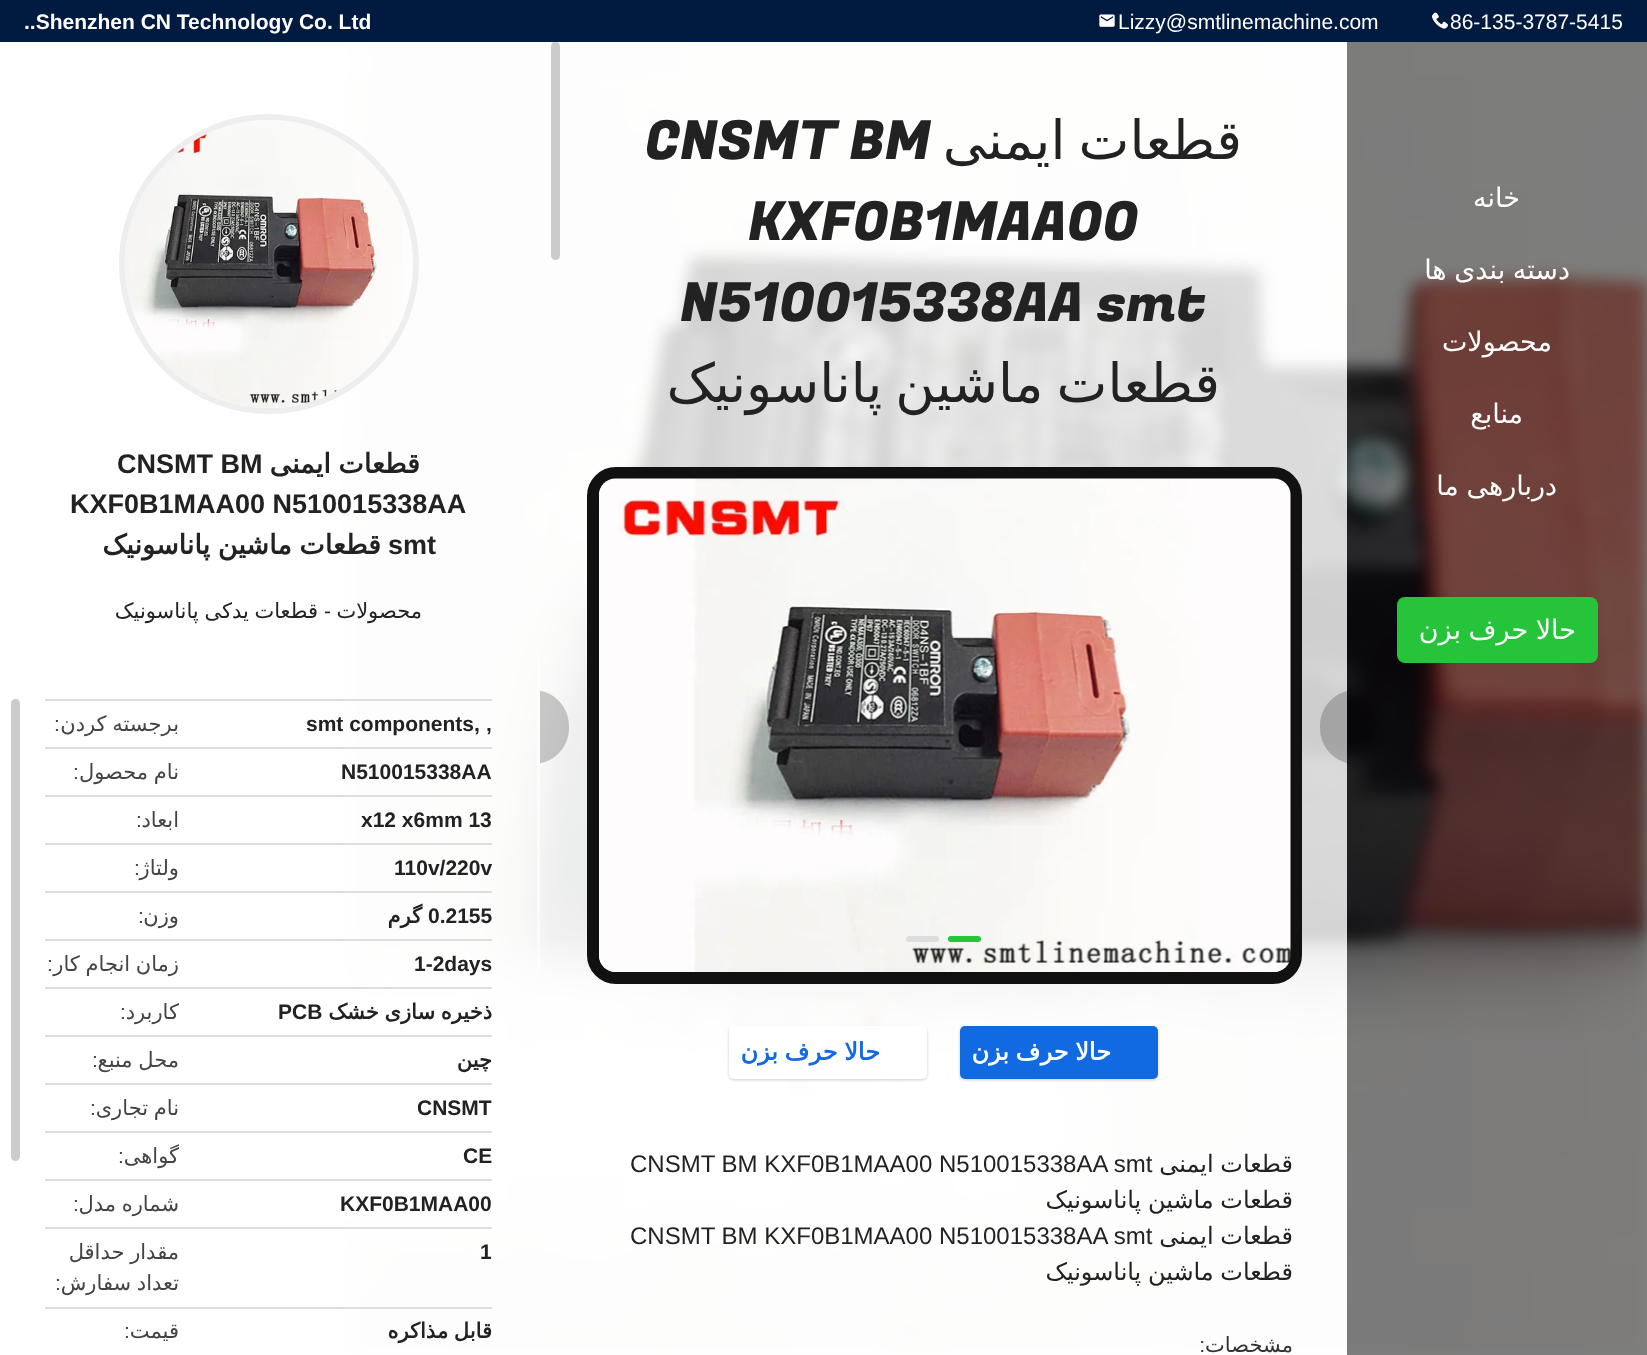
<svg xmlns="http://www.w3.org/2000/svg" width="1647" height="1355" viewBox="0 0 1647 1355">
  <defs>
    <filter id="blur1" x="-50%" y="-200%" width="200%" height="500%"><feGaussianBlur stdDeviation="1.5"/></filter>
    <clipPath id="clip1"><rect x="45" y="989" width="447" height="46"/></clipPath>
  </defs>
  <rect width="100%" height="100%" fill="#ffffff"/>
  <rect x="0" y="0" width="1647" height="42" fill="#001b3f"/>
  <text x="1450" y="29" font-family="Liberation Sans" font-size="21" fill="#ffffff">86-135-3787-5415</text>
  <image x="1432" y="12" width="16" height="17" href="img1.png"/>
  <text x="1118" y="29" font-family="Liberation Sans" font-size="21" fill="#ffffff">Lizzy@smtlinemachine.com</text>
  <image x="1099" y="14" width="16" height="13" href="img2.png"/>
  <text x="24" y="29" font-family="Liberation Sans" font-size="21" font-weight="bold" fill="#ffffff">..Shenzhen CN Technology Co. Ltd</text>
  <image x="105" y="42" width="1542" height="1313" href="img3.png"/>
  <rect x="1347" y="42" width="300" height="1313" fill="#000000" fill-opacity="0.5"/>
  <text x="1520" y="207" font-family="DejaVu Sans" font-size="27" direction="rtl" fill="#ffffff">خانه</text>
  <text x="1570" y="279" word-spacing="-1" font-family="DejaVu Sans" font-size="27" direction="rtl" fill="#ffffff">دسته بندی ها</text>
  <text x="1552" y="351" font-family="DejaVu Sans" font-size="27" direction="rtl" fill="#ffffff">محصولات</text>
  <text x="1523" y="423" font-family="DejaVu Sans" font-size="27" direction="rtl" fill="#ffffff">منابع</text>
  <text x="1557" y="495" word-spacing="-1" font-family="DejaVu Sans" font-size="27" direction="rtl" fill="#ffffff">دربارهی ما</text>
  <rect x="1397" y="597" width="201" height="66" rx="8" fill="#26c43a"/>
  <text x="1576" y="639" word-spacing="-1" font-family="DejaVu Sans" font-size="27" direction="rtl" fill="#ffffff">حالا حرف بزن</text>
  <rect x="540" y="42" width="807" height="1313" fill="#ffffff" fill-opacity="0.8"/>
  <text x="1242" y="159" word-spacing="-4" font-family="DejaVu Sans" font-size="54" direction="rtl" fill="#222222">قطعات ایمنی</text>
  <text x="645" y="159" font-family="Fugaz One" font-size="54" fill="#222222">CNSMT BM</text>
  <text x="748" y="240" font-family="Fugaz One" font-size="54" fill="#222222">KXF0B1MAA00</text>
  <text x="680" y="321" font-family="Fugaz One" font-size="54" fill="#222222">N510015338AA smt</text>
  <text x="1220" y="402" word-spacing="-4" font-family="DejaVu Sans" font-size="54" direction="rtl" fill="#222222">قطعات ماشین پاناسونیک</text>
  <rect x="551" y="42" width="9" height="218" rx="4.5" fill="#cbcbcb"/>
  <rect x="593" y="473" width="703" height="505" rx="23" fill="none" stroke="#111111" stroke-width="12"/>
  <image x="599" y="478" width="692" height="494" href="img4.png"/>
  <path d="M1356 690H1347V764H1356C1336 764 1320 748 1320 728V726C1320 706 1336 690 1356 690Z" fill="#000000" fill-opacity="0.2"/>
  <path d="M540 690H533C553 690 569 706 569 726V728C569 748 553 764 533 764H540Z" fill="#000000" fill-opacity="0.2"/>
  <rect x="948" y="936" width="33" height="6" rx="3" fill="#26c43a"/>
  <rect x="906" y="936" width="33" height="6" rx="3" fill="#dddddd"/>
  <rect x="960" y="1028" width="198" height="52" rx="5" fill="#000000" fill-opacity="0.2" filter="url(#blur1)"/>
  <rect x="960" y="1026" width="198" height="53" rx="5" fill="#126ae2"/>
  <text x="1111" y="1060" word-spacing="-1" font-family="DejaVu Sans" font-size="24" font-weight="bold" direction="rtl" fill="#ffffff">حالا حرف بزن</text>
  <rect x="729" y="1028" width="198" height="52" rx="5" fill="#000000" fill-opacity="0.2" filter="url(#blur1)"/>
  <rect x="729" y="1026" width="198" height="53" rx="5" fill="#ffffff"/>
  <text x="880" y="1060" word-spacing="-1" font-family="DejaVu Sans" font-size="24" font-weight="bold" direction="rtl" fill="#126ae2">حالا حرف بزن</text>
  <text x="1293" y="1172" word-spacing="-1" font-family="DejaVu Sans" font-size="24" direction="rtl" fill="#222222">قطعات ایمنی</text>
  <text x="630" y="1172" font-family="Liberation Sans" font-size="24" fill="#222222">CNSMT BM KXF0B1MAA00 N510015338AA smt</text>
  <text x="1293" y="1208" word-spacing="-1" font-family="DejaVu Sans" font-size="24" direction="rtl" fill="#222222">قطعات ماشین پاناسونیک</text>
  <text x="1293" y="1244" word-spacing="-1" font-family="DejaVu Sans" font-size="24" direction="rtl" fill="#222222">قطعات ایمنی</text>
  <text x="630" y="1244" font-family="Liberation Sans" font-size="24" fill="#222222">CNSMT BM KXF0B1MAA00 N510015338AA smt</text>
  <text x="1293" y="1280" word-spacing="-1" font-family="DejaVu Sans" font-size="24" direction="rtl" fill="#222222">قطعات ماشین پاناسونیک</text>
  <text x="1293" y="1352" font-family="DejaVu Sans" font-size="21" direction="rtl" fill="#333333">مشخصات</text>
  <text x="1205" y="1352" font-family="Liberation Sans" font-size="21" direction="rtl" fill="#333333">:</text>
  <rect x="105" y="42" width="435" height="1313" fill="#ffffff" fill-opacity="0.8"/>
  <rect x="537" y="655" width="3" height="317" fill="#ffffff" fill-opacity="0.6"/>
  <circle cx="269" cy="264" r="147" fill="none" stroke="#eeeeee" stroke-width="6"/>
  <image x="124" y="120" width="279" height="288" href="img5.png"/>
  <text x="420" y="473" word-spacing="-1" font-family="DejaVu Sans" font-size="27" font-weight="bold" direction="rtl" fill="#222222">قطعات ایمنی</text>
  <text x="117" y="473" font-family="Liberation Sans" font-size="27" font-weight="bold" fill="#222222">CNSMT BM</text>
  <text x="70" y="513" font-family="Liberation Sans" font-size="27" font-weight="bold" fill="#222222">KXF0B1MAA00 N510015338AA</text>
  <text x="388" y="554" font-family="Liberation Sans" font-size="27" font-weight="bold" fill="#222222">smt</text>
  <text x="381" y="554" word-spacing="-1" font-family="DejaVu Sans" font-size="27" font-weight="bold" direction="rtl" fill="#222222">قطعات ماشین پاناسونیک</text>
  <text x="422" y="618" font-family="DejaVu Sans" font-size="21" direction="rtl" fill="#222222">محصولات</text>
  <text x="324" y="618" font-family="Liberation Sans" font-size="21" fill="#222222">-</text>
  <text x="318" y="618" word-spacing="-1" font-family="DejaVu Sans" font-size="21" direction="rtl" fill="#222222">قطعات یدکی پاناسونیک</text>
  <rect x="45" y="699" width="447" height="2" fill="#dddddd"/>
  <text x="486" y="731" font-family="Liberation Sans" font-size="21" font-weight="bold" fill="#222222">,</text>
  <text x="474" y="731" font-family="Liberation Sans" font-size="21" font-weight="bold" fill="#222222">,</text>
  <text x="306" y="731" font-family="Liberation Sans" font-size="21" font-weight="bold" fill="#222222">smt components</text>
  <text x="179" y="731" word-spacing="-1" font-family="DejaVu Sans" font-size="21" direction="rtl" fill="#444444">برجسته کردن</text>
  <text x="54" y="731" font-family="Liberation Sans" font-size="21" fill="#444444">:</text>
  <rect x="45" y="747" width="447" height="2" fill="#dddddd"/>
  <text x="341" y="779" font-family="Liberation Sans" font-size="21" font-weight="bold" fill="#222222">N510015338AA</text>
  <text x="179" y="779" word-spacing="-1" font-family="DejaVu Sans" font-size="21" direction="rtl" fill="#444444">نام محصول</text>
  <text x="73" y="779" font-family="Liberation Sans" font-size="21" fill="#444444">:</text>
  <rect x="45" y="795" width="447" height="2" fill="#dddddd"/>
  <text x="361" y="827" font-family="Liberation Sans" font-size="21" font-weight="bold" fill="#222222">x12 x6mm 13</text>
  <text x="179" y="827" font-family="DejaVu Sans" font-size="21" direction="rtl" fill="#444444">ابعاد</text>
  <text x="136" y="827" font-family="Liberation Sans" font-size="21" fill="#444444">:</text>
  <rect x="45" y="843" width="447" height="2" fill="#dddddd"/>
  <text x="394" y="875" font-family="Liberation Sans" font-size="21" font-weight="bold" fill="#222222">110v/220v</text>
  <text x="179" y="875" font-family="DejaVu Sans" font-size="21" direction="rtl" fill="#444444">ولتاژ</text>
  <text x="134" y="875" font-family="Liberation Sans" font-size="21" fill="#444444">:</text>
  <rect x="45" y="891" width="447" height="2" fill="#dddddd"/>
  <text x="428" y="923" font-family="Liberation Sans" font-size="21" font-weight="bold" fill="#222222">0.2155</text>
  <text x="422" y="923" font-family="DejaVu Sans" font-size="21" font-weight="bold" direction="rtl" fill="#222222">گرم</text>
  <text x="179" y="923" font-family="DejaVu Sans" font-size="21" direction="rtl" fill="#444444">وزن</text>
  <text x="138" y="923" font-family="Liberation Sans" font-size="21" fill="#444444">:</text>
  <rect x="45" y="939" width="447" height="2" fill="#dddddd"/>
  <text x="414" y="971" font-family="Liberation Sans" font-size="21" font-weight="bold" fill="#222222">1-2days</text>
  <text x="179" y="971" word-spacing="-1" font-family="DejaVu Sans" font-size="21" direction="rtl" fill="#444444">زمان انجام کار</text>
  <text x="47" y="971" font-family="Liberation Sans" font-size="21" fill="#444444">:</text>
  <rect x="45" y="987" width="447" height="2" fill="#dddddd"/>
  <g clip-path="url(#clip1)">
    <text x="492" y="1019" word-spacing="-1" font-family="DejaVu Sans" font-size="21" font-weight="bold" direction="rtl" fill="#222222">ذخیره سازی خشک</text>
  </g>
  <text x="278" y="1019" font-family="Liberation Sans" font-size="21" font-weight="bold" fill="#222222">PCB</text>
  <text x="179" y="1019" font-family="DejaVu Sans" font-size="21" direction="rtl" fill="#444444">کاربرد</text>
  <text x="120" y="1019" font-family="Liberation Sans" font-size="21" fill="#444444">:</text>
  <rect x="45" y="1035" width="447" height="2" fill="#dddddd"/>
  <text x="492" y="1067" font-family="DejaVu Sans" font-size="21" font-weight="bold" direction="rtl" fill="#222222">چين</text>
  <text x="179" y="1067" word-spacing="-1" font-family="DejaVu Sans" font-size="21" direction="rtl" fill="#444444">محل منبع</text>
  <text x="92" y="1067" font-family="Liberation Sans" font-size="21" fill="#444444">:</text>
  <rect x="45" y="1083" width="447" height="2" fill="#dddddd"/>
  <text x="417" y="1115" font-family="Liberation Sans" font-size="21" font-weight="bold" fill="#222222">CNSMT</text>
  <text x="179" y="1115" word-spacing="-1" font-family="DejaVu Sans" font-size="21" direction="rtl" fill="#444444">نام تجاری</text>
  <text x="90" y="1115" font-family="Liberation Sans" font-size="21" fill="#444444">:</text>
  <rect x="45" y="1131" width="447" height="2" fill="#dddddd"/>
  <text x="463" y="1163" font-family="Liberation Sans" font-size="21" font-weight="bold" fill="#222222">CE</text>
  <text x="179" y="1163" font-family="DejaVu Sans" font-size="21" direction="rtl" fill="#444444">گواهی</text>
  <text x="118" y="1163" font-family="Liberation Sans" font-size="21" fill="#444444">:</text>
  <rect x="45" y="1179" width="447" height="2" fill="#dddddd"/>
  <text x="340" y="1211" font-family="Liberation Sans" font-size="21" font-weight="bold" fill="#222222">KXF0B1MAA00</text>
  <text x="179" y="1211" word-spacing="-1" font-family="DejaVu Sans" font-size="21" direction="rtl" fill="#444444">شماره مدل</text>
  <text x="73" y="1211" font-family="Liberation Sans" font-size="21" fill="#444444">:</text>
  <rect x="45" y="1227" width="447" height="2" fill="#dddddd"/>
  <text x="480" y="1259" font-family="Liberation Sans" font-size="21" font-weight="bold" fill="#222222">1</text>
  <text x="179" y="1259" word-spacing="-1" font-family="DejaVu Sans" font-size="21" direction="rtl" fill="#444444">مقدار حداقل</text>
  <text x="179" y="1290" word-spacing="-1" font-family="DejaVu Sans" font-size="21" direction="rtl" fill="#444444">تعداد سفارش</text>
  <text x="55" y="1290" font-family="Liberation Sans" font-size="21" fill="#444444">:</text>
  <rect x="45" y="1307" width="447" height="2" fill="#dddddd"/>
  <text x="492" y="1338" word-spacing="-1" font-family="DejaVu Sans" font-size="21" font-weight="bold" direction="rtl" fill="#222222">قابل مذاکره</text>
  <text x="179" y="1338" font-family="DejaVu Sans" font-size="21" direction="rtl" fill="#444444">قیمت</text>
  <text x="124" y="1338" font-family="Liberation Sans" font-size="21" fill="#444444">:</text>
  <rect x="11" y="699" width="9" height="462" rx="4.5" fill="#cccccc"/>
</svg>
